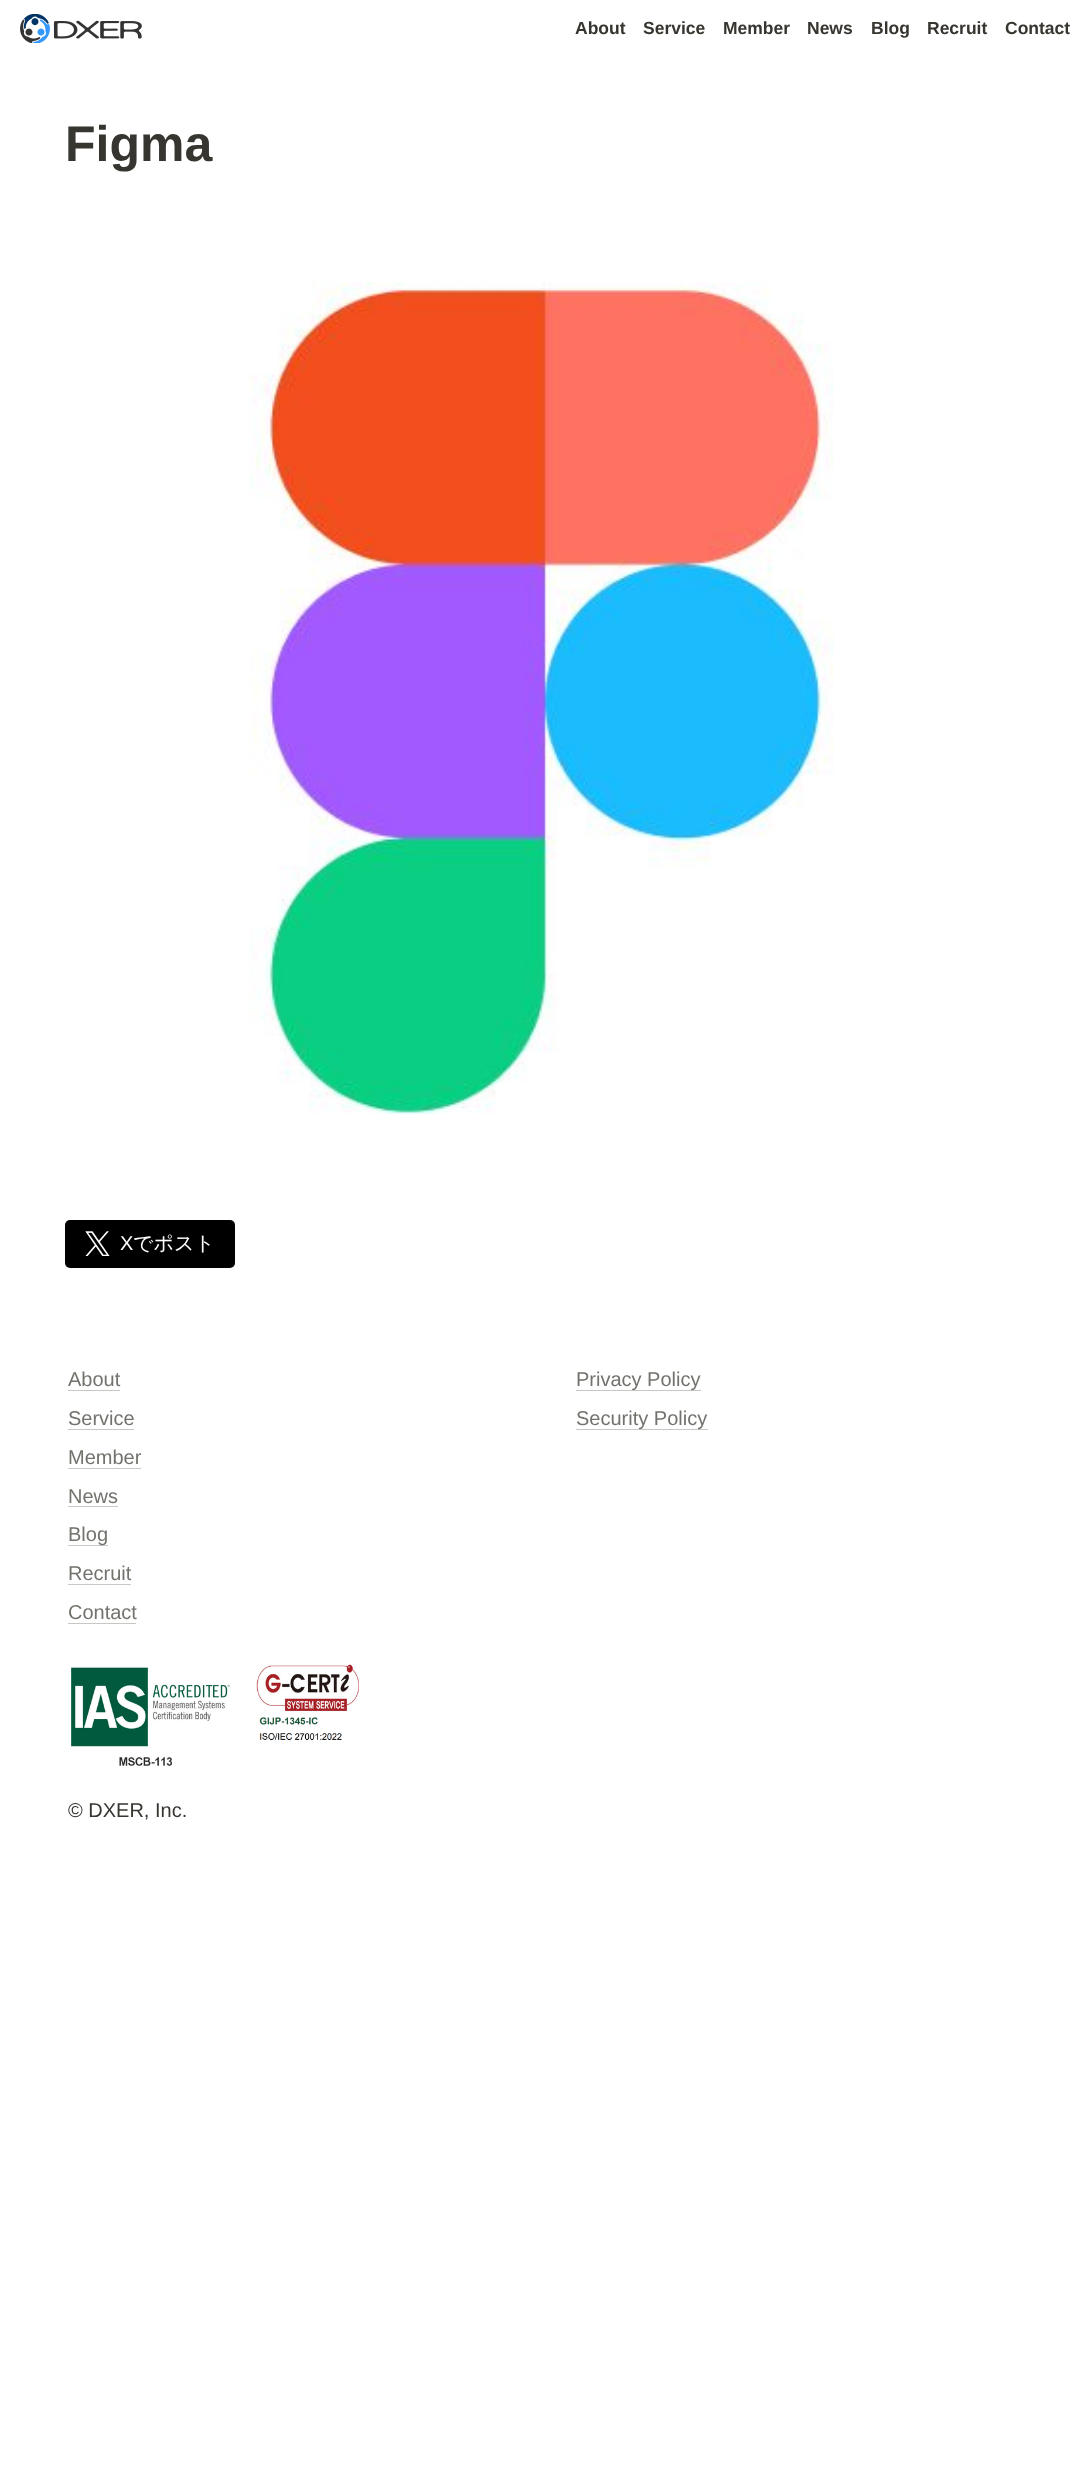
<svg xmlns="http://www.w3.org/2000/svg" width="1090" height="2484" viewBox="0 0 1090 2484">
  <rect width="100%" height="100%" fill="#ffffff"/>
  <image x="20" y="14" width="122" height="29" href="img1.png"/>
  <text x="575" y="34" font-family="Liberation Sans" font-size="17.5" font-weight="bold" fill="#37352f">About</text>
  <text x="643" y="34" font-family="Liberation Sans" font-size="17.5" font-weight="bold" fill="#37352f">Service</text>
  <text x="723" y="34" font-family="Liberation Sans" font-size="17.5" font-weight="bold" fill="#37352f">Member</text>
  <text x="807" y="34" font-family="Liberation Sans" font-size="17.5" font-weight="bold" fill="#37352f">News</text>
  <text x="871" y="34" font-family="Liberation Sans" font-size="17.5" font-weight="bold" fill="#37352f">Blog</text>
  <text x="927" y="34" font-family="Liberation Sans" font-size="17.5" font-weight="bold" fill="#37352f">Recruit</text>
  <text x="1005" y="34" font-family="Liberation Sans" font-size="17.5" font-weight="bold" fill="#37352f">Contact</text>
  <text x="65" y="161" font-family="Liberation Sans" font-size="50" font-weight="bold" fill="#37352f">Figma</text>
  <image x="249" y="282" width="585" height="833" href="img2.png"/>
  <rect x="65" y="1220" width="170" height="48" rx="5" fill="#000000"/>
  <image x="85" y="1231" width="25" height="25" href="img3.png"/>
  <text x="120" y="1250" font-family="Liberation Sans" font-size="20" fill="#ffffff">X</text>
  <text x="133" y="1250" font-family="WenQuanYi Zen Hei" font-size="20" font-weight="500" fill="#ffffff">でポスト</text>
  <text x="68" y="1386" font-family="Liberation Sans" font-size="20" fill="#73726d">About</text>
  <rect x="68" y="1390" width="52" height="1" fill="#c7c7c5"/>
  <text x="68" y="1425" font-family="Liberation Sans" font-size="20" fill="#73726d">Service</text>
  <rect x="68" y="1429" width="66" height="1" fill="#c7c7c5"/>
  <text x="68" y="1464" font-family="Liberation Sans" font-size="20" fill="#73726d">Member</text>
  <rect x="68" y="1468" width="73" height="1" fill="#c7c7c5"/>
  <text x="68" y="1503" font-family="Liberation Sans" font-size="20" fill="#73726d">News</text>
  <rect x="68" y="1506" width="50" height="1" fill="#c7c7c5"/>
  <rect x="68" y="1545" width="40" height="1" fill="#c7c7c5"/>
  <text x="68" y="1541" font-family="Liberation Sans" font-size="20" fill="#73726d">Blog</text>
  <text x="68" y="1580" font-family="Liberation Sans" font-size="20" fill="#73726d">Recruit</text>
  <rect x="68" y="1584" width="63" height="1" fill="#c7c7c5"/>
  <text x="68" y="1619" font-family="Liberation Sans" font-size="20" fill="#73726d">Contact</text>
  <rect x="68" y="1623" width="68" height="1" fill="#c7c7c5"/>
  <rect x="576" y="1390" width="125" height="1" fill="#c7c7c5"/>
  <text x="576" y="1386" font-family="Liberation Sans" font-size="20" fill="#73726d">Privacy Policy</text>
  <rect x="576" y="1429" width="132" height="1" fill="#c7c7c5"/>
  <text x="576" y="1425" font-family="Liberation Sans" font-size="20" fill="#73726d">Security Policy</text>
  <image x="71" y="1664" width="289" height="102" href="img4.png"/>
  <text x="68" y="1817" font-family="Liberation Sans" font-size="20" fill="#37352f">©︎ DXER, Inc.</text>
</svg>
